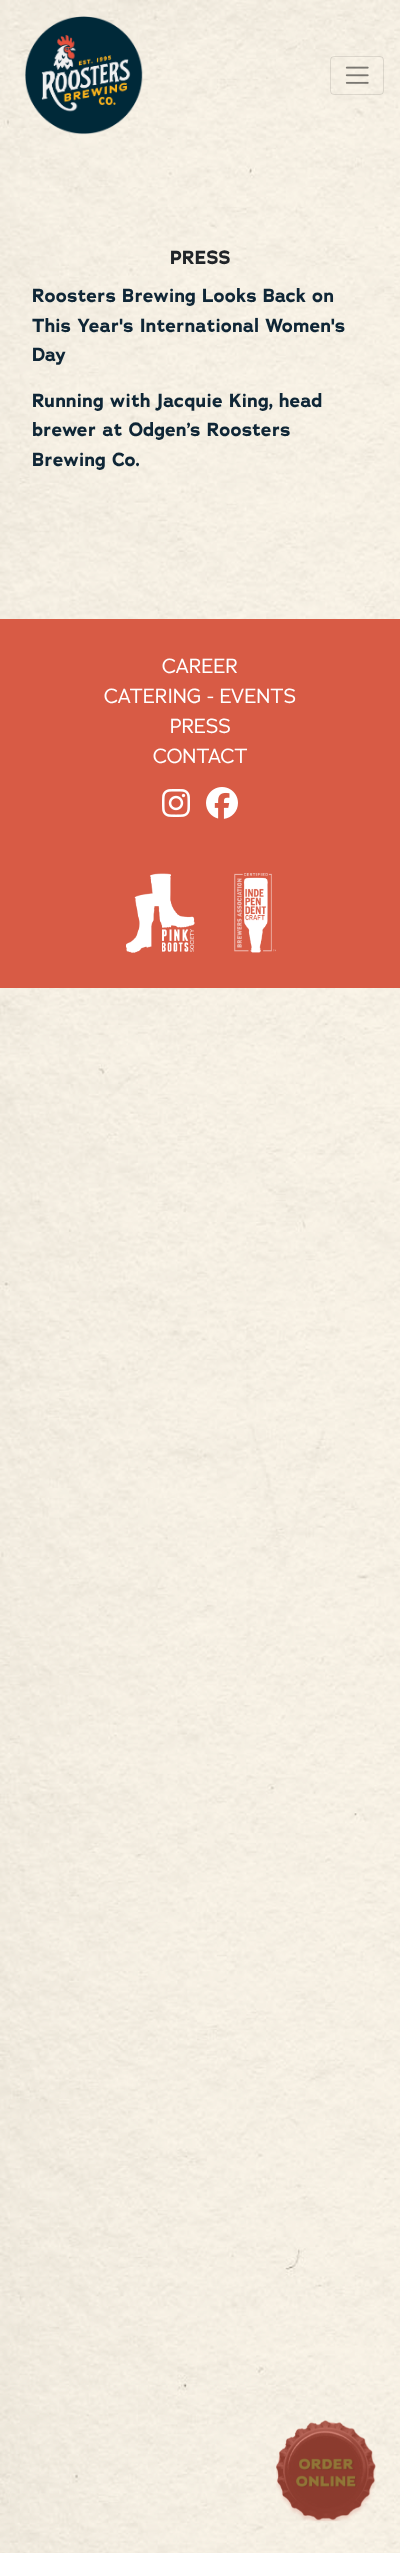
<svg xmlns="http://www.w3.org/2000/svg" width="400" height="2553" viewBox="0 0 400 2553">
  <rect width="100%" height="100%" fill="#ffffff"/>
  <image x="0" y="0" width="400" height="2553" href="img1.png"/>
  <image x="25" y="16" width="118" height="119" href="img2.png"/>
  <rect x="330.5" y="56.5" width="53" height="38" rx="3.5" fill="none" stroke="#000000" stroke-opacity="0.1"/>
  <image x="345" y="66" width="24" height="18" href="img3.png"/>
  <text x="170" y="264" font-family="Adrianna" font-size="19" font-weight="bold" fill="#212529">PRESS</text>
  <text x="32" y="302" font-family="Adrianna" font-size="19" font-weight="bold" fill="#0f2636">Roosters Brewing Looks Back on</text>
  <text x="32" y="332" font-family="Adrianna" font-size="19" font-weight="bold" fill="#0f2636">This Year's International Women's</text>
  <text x="32" y="361" font-family="Adrianna" font-size="19" font-weight="bold" fill="#0f2636">Day</text>
  <text x="32" y="407" font-family="Adrianna" font-size="19" font-weight="bold" fill="#0f2636">Running with Jacquie King, head</text>
  <text x="32" y="436" font-family="Adrianna" font-size="19" font-weight="bold" fill="#0f2636">brewer at Odgen’s Roosters</text>
  <text x="32" y="466" font-family="Adrianna" font-size="19" font-weight="bold" fill="#0f2636">Brewing Co.</text>
  <rect x="0" y="619" width="400" height="369" fill="#d85b45"/>
  <text x="162" y="673" font-family="Adrianna" font-size="20" fill="#ffffff">CAREER</text>
  <text x="104" y="703" font-family="Adrianna" font-size="20" fill="#ffffff">CATERING - EVENTS</text>
  <text x="170" y="733" font-family="Adrianna" font-size="20" fill="#ffffff">PRESS</text>
  <text x="153" y="763" font-family="Adrianna" font-size="20" fill="#ffffff">CONTACT</text>
  <image x="162" y="789" width="28" height="28" href="img4.png"/>
  <image x="206" y="787" width="32" height="32" href="img5.png"/>
  <image x="126" y="873" width="69" height="80" href="img6.png"/>
  <image x="234" y="873" width="42" height="80" href="img7.png"/>
  <image x="276" y="2420" width="100" height="102" href="img8.png"/>
</svg>
